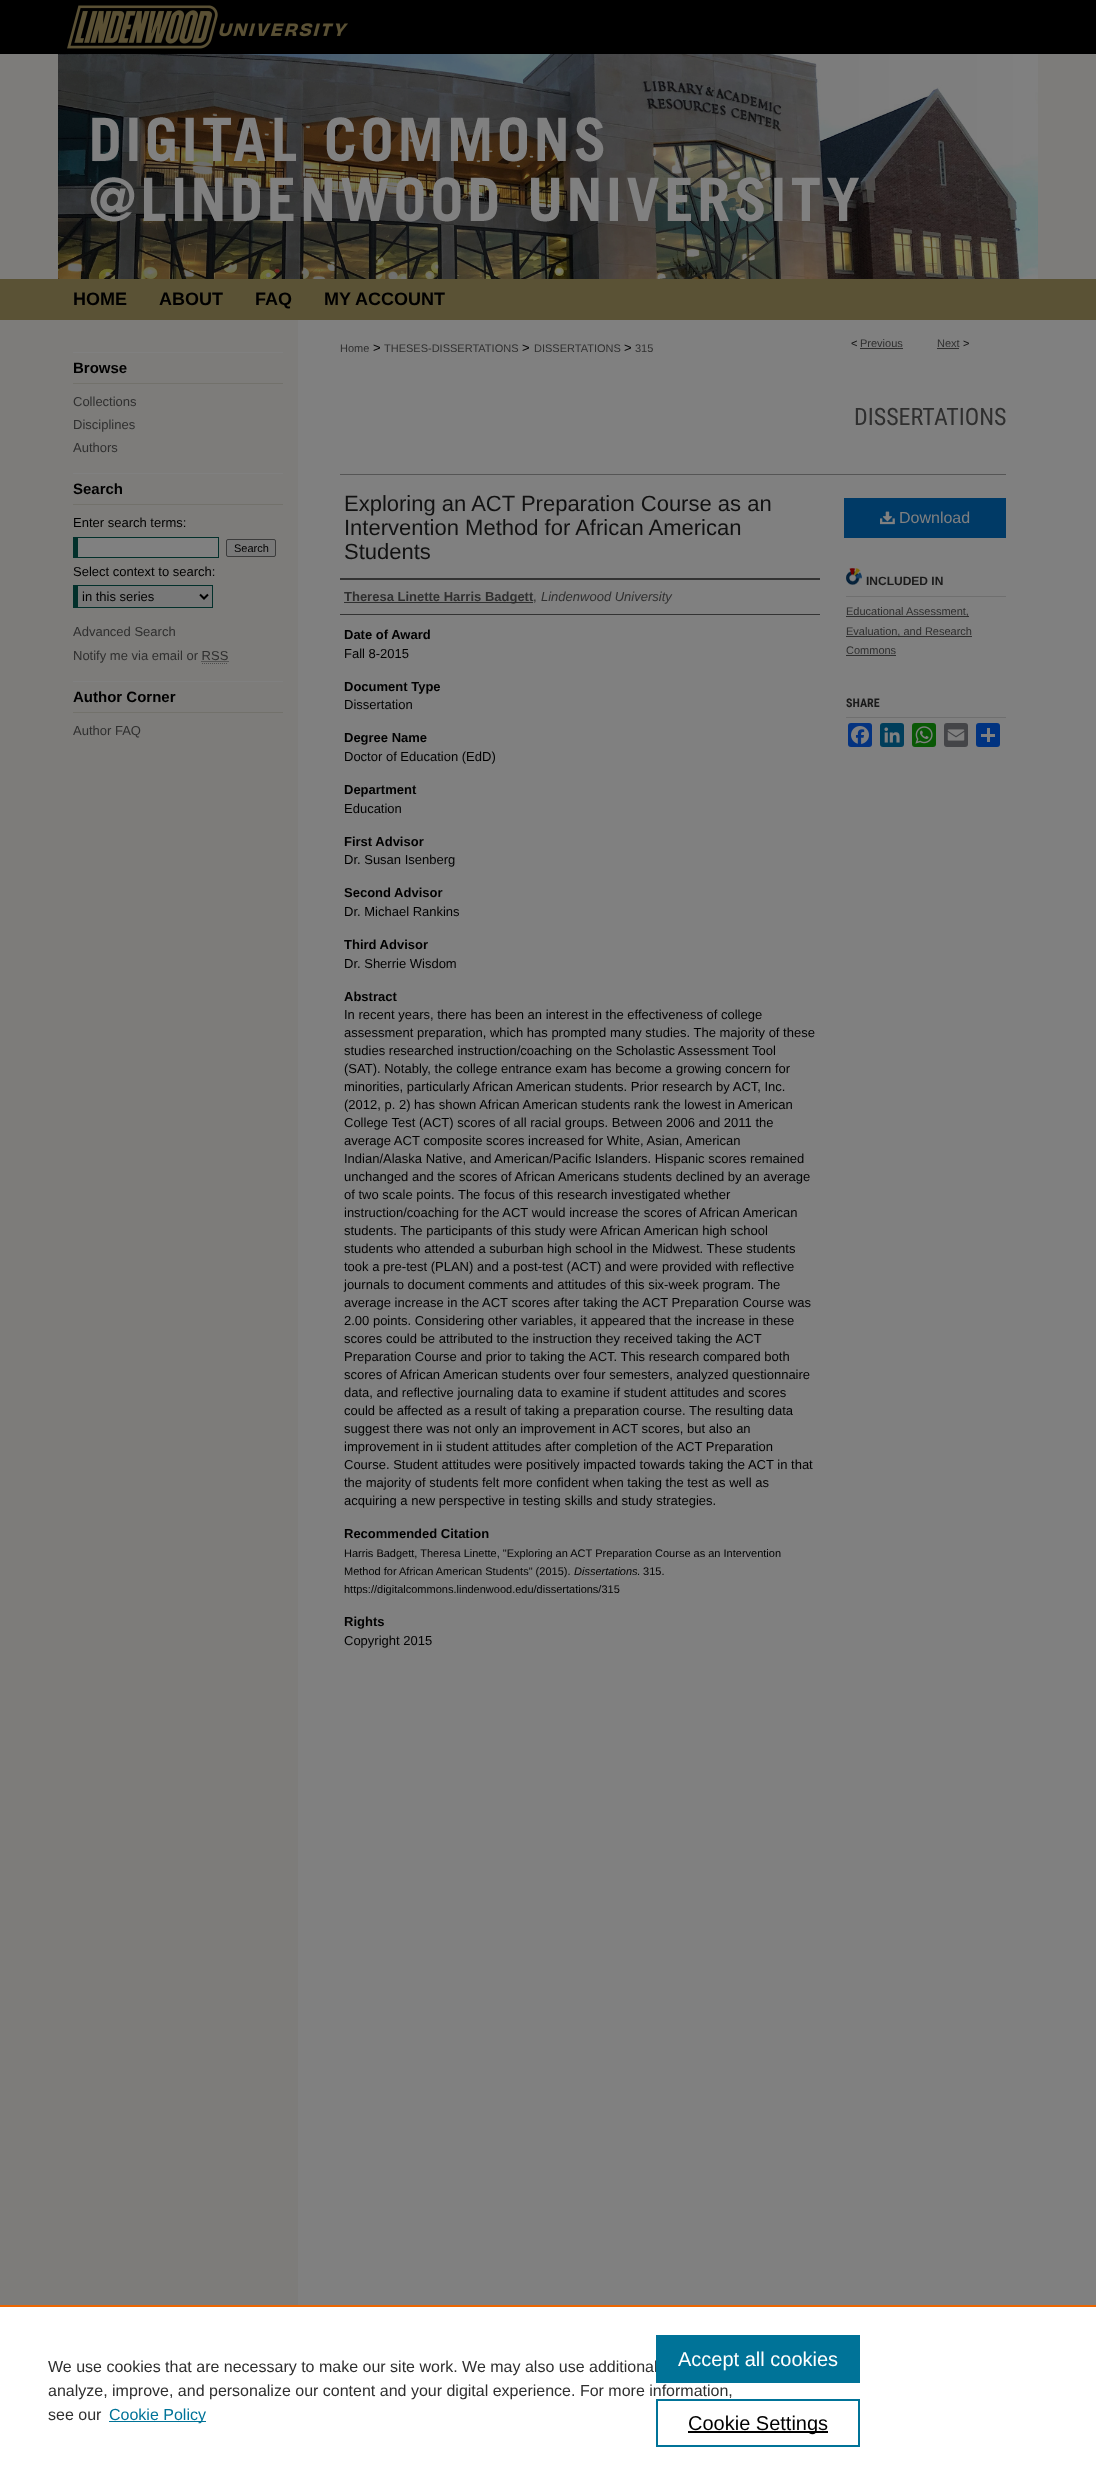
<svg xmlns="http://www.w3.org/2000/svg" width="1096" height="2475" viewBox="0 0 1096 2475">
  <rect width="100%" height="100%" fill="#ffffff"/>
  <image x="0" y="0" width="1096" height="2305" href="img1.png"/>
  <image x="58" y="0" width="980" height="279" href="img2.png"/>
  <image x="67" y="5" width="395" height="44" href="img3.png"/>
  <text x="73" y="305" font-family="Liberation Sans" font-size="18" font-weight="bold" fill="#000000">HOME</text>
  <text x="159" y="305" font-family="Liberation Sans" font-size="18" font-weight="bold" fill="#000000">ABOUT</text>
  <text x="255" y="305" font-family="Liberation Sans" font-size="18" font-weight="bold" fill="#000000">FAQ</text>
  <text x="324" y="305" font-family="Liberation Sans" font-size="18" font-weight="bold" fill="#000000">MY ACCOUNT</text>
  <rect x="298" y="320" width="250" height="1985" fill="#808080"/>
  <rect x="73" y="352" width="210" height="1" fill="#808080"/>
  <rect x="73" y="383" width="210" height="1" fill="#72716b"/>
  <text x="73" y="373" font-family="Liberation Sans" font-size="15" font-weight="bold" fill="#000000">Browse</text>
  <text x="73" y="406" font-family="Liberation Sans" font-size="13" fill="#2f2f2f">Collections</text>
  <text x="73" y="429" font-family="Liberation Sans" font-size="13" fill="#2f2f2f">Disciplines</text>
  <text x="73" y="452" font-family="Liberation Sans" font-size="13" fill="#2f2f2f">Authors</text>
  <rect x="73" y="473" width="210" height="1" fill="#808080"/>
  <rect x="73" y="504" width="210" height="1" fill="#72716b"/>
  <text x="73" y="494" font-family="Liberation Sans" font-size="15" font-weight="bold" fill="#000000">Search</text>
  <text x="73" y="527" font-family="Liberation Sans" font-size="13" fill="#000000">Enter search terms:</text>
  <rect x="78" y="538" width="140" height="19" fill="#808080"/>
  <rect x="73" y="537" width="146" height="1" fill="#02302b"/>
  <rect x="218" y="537" width="1" height="21" fill="#02302b"/>
  <rect x="73" y="557" width="146" height="1" fill="#02302b"/>
  <rect x="73" y="537" width="5" height="21" fill="#02302b"/>
  <rect x="226.5" y="539.5" width="49" height="17" rx="1.5" fill="#787878" stroke="#3b3b3b"/>
  <text x="234" y="552" font-family="Liberation Sans" font-size="11" fill="#000000">Search</text>
  <text x="73" y="576" font-family="Liberation Sans" font-size="13" fill="#000000">Select context to search:</text>
  <rect x="78" y="586" width="134" height="21" fill="#787878"/>
  <rect x="73" y="585" width="140" height="1" fill="#02302b"/>
  <rect x="212" y="585" width="1" height="23" fill="#02302b"/>
  <rect x="73" y="607" width="140" height="1" fill="#02302b"/>
  <rect x="73" y="585" width="5" height="23" fill="#02302b"/>
  <path d="M200 594.5L204 598.5L208 594.5" fill="none" stroke="#000000" stroke-width="2"/>
  <text x="82" y="601" font-family="Liberation Sans" font-size="13" fill="#000000">in this series</text>
  <text x="73" y="636" font-family="Liberation Sans" font-size="13" fill="#2f2f2f">Advanced Search</text>
  <text x="73" y="660" font-family="Liberation Sans" font-size="13" fill="#2f2f2f">Notify me via email or RSS</text>
  <path d="M201.5 661.5H228.5" fill="none" stroke="#2f2f2f" stroke-dasharray="1 1"/>
  <path d="M202 663.5H228" fill="none" stroke="#4d4d4d" stroke-dasharray="1 1"/>
  <rect x="73" y="681" width="210" height="1" fill="#808080"/>
  <rect x="73" y="712" width="210" height="1" fill="#72716b"/>
  <text x="73" y="702" font-family="Liberation Sans" font-size="15" font-weight="bold" fill="#000000">Author Corner</text>
  <text x="73" y="735" font-family="Liberation Sans" font-size="13" fill="#2f2f2f">Author FAQ</text>
  <text x="340" y="352" font-family="Liberation Sans" font-size="11" fill="#2f2f2f">Home</text>
  <text x="373" y="352" font-family="Liberation Sans" font-size="13" fill="#000000">&gt;</text>
  <text x="384" y="352" font-family="Liberation Sans" font-size="11" fill="#2f2f2f">THESES-DISSERTATIONS</text>
  <text x="522" y="352" font-family="Liberation Sans" font-size="13" fill="#000000">&gt;</text>
  <text x="534" y="352" font-family="Liberation Sans" font-size="11" fill="#2f2f2f">DISSERTATIONS</text>
  <text x="624" y="352" font-family="Liberation Sans" font-size="13" fill="#000000">&gt;</text>
  <text x="635" y="352" font-family="Liberation Sans" font-size="11" fill="#2f2f2f">315</text>
  <text x="851" y="347" font-family="Liberation Sans" font-size="11" fill="#111111">&lt;</text>
  <text x="860" y="347" font-family="Liberation Sans" font-size="11" fill="#2f2f2f">Previous</text>
  <rect x="860" y="348" width="43" height="1" fill="#2f2f2f"/>
  <text x="937" y="347" font-family="Liberation Sans" font-size="11" fill="#2f2f2f">Next</text>
  <rect x="937" y="348" width="22" height="1" fill="#2f2f2f"/>
  <text x="963" y="347" font-family="Liberation Sans" font-size="11" fill="#111111">&gt;</text>
  <text x="854" y="425" font-family="Roboto Condensed" font-size="24" fill="#2f2f2f">DISSERTATIONS</text>
  <rect x="340" y="474" width="666" height="1" fill="#555555"/>
  <text x="344" y="511" font-family="Liberation Sans" font-size="22" fill="#111111">Exploring an ACT Preparation Course as an</text>
  <text x="344" y="535" font-family="Liberation Sans" font-size="22" fill="#111111">Intervention Method for African American</text>
  <text x="344" y="559" font-family="Liberation Sans" font-size="22" fill="#111111">Students</text>
  <rect x="340" y="578" width="480" height="2" fill="#333333"/>
  <rect x="340" y="614" width="480" height="1" fill="#333333"/>
  <rect x="344" y="602" width="189" height="1" fill="#2f2f2f"/>
  <text x="344" y="601" font-family="Liberation Sans" font-size="13" font-weight="bold" fill="#2f2f2f">Theresa Linette Harris Badgett</text>
  <text x="533" y="601" font-family="Liberation Sans" font-size="13" fill="#2f2f2f">,</text>
  <text x="541" y="601" font-family="Liberation Sans" font-size="13" font-style="italic" fill="#2f2f2f">Lindenwood University</text>
  <text x="344" y="639" font-family="Liberation Sans" font-size="13" font-weight="bold" fill="#000000">Date of Award</text>
  <text x="344" y="658" font-family="Liberation Sans" font-size="13" fill="#000000">Fall 8-2015</text>
  <text x="344" y="691" font-family="Liberation Sans" font-size="13" font-weight="bold" fill="#000000">Document Type</text>
  <text x="344" y="709" font-family="Liberation Sans" font-size="13" fill="#000000">Dissertation</text>
  <text x="344" y="742" font-family="Liberation Sans" font-size="13" font-weight="bold" fill="#000000">Degree Name</text>
  <text x="344" y="761" font-family="Liberation Sans" font-size="13" fill="#000000">Doctor of Education (EdD)</text>
  <text x="344" y="794" font-family="Liberation Sans" font-size="13" font-weight="bold" fill="#000000">Department</text>
  <text x="344" y="813" font-family="Liberation Sans" font-size="13" fill="#000000">Education</text>
  <text x="344" y="846" font-family="Liberation Sans" font-size="13" font-weight="bold" fill="#000000">First Advisor</text>
  <text x="344" y="864" font-family="Liberation Sans" font-size="13" fill="#000000">Dr. Susan Isenberg</text>
  <text x="344" y="897" font-family="Liberation Sans" font-size="13" font-weight="bold" fill="#000000">Second Advisor</text>
  <text x="344" y="916" font-family="Liberation Sans" font-size="13" fill="#000000">Dr. Michael Rankins</text>
  <text x="344" y="949" font-family="Liberation Sans" font-size="13" font-weight="bold" fill="#000000">Third Advisor</text>
  <text x="344" y="968" font-family="Liberation Sans" font-size="13" fill="#000000">Dr. Sherrie Wisdom</text>
  <text x="344" y="1001" font-family="Liberation Sans" font-size="13" font-weight="bold" fill="#000000">Abstract</text>
  <text x="344" y="1019" font-family="Liberation Sans" font-size="13" fill="#000000">In recent years, there has been an interest in the effectiveness of college</text>
  <text x="344" y="1037" font-family="Liberation Sans" font-size="13" fill="#000000">assessment preparation, which has prompted many studies. The majority of these</text>
  <text x="344" y="1055" font-family="Liberation Sans" font-size="13" fill="#000000">studies researched instruction/coaching on the Scholastic Assessment Tool</text>
  <text x="344" y="1073" font-family="Liberation Sans" font-size="13" fill="#000000">(SAT). Notably, the college entrance exam has become a growing concern for</text>
  <text x="344" y="1091" font-family="Liberation Sans" font-size="13" fill="#000000">minorities, particularly African American students. Prior research by ACT, Inc.</text>
  <text x="344" y="1109" font-family="Liberation Sans" font-size="13" fill="#000000">(2012, p. 2) has shown African American students rank the lowest in American</text>
  <text x="344" y="1127" font-family="Liberation Sans" font-size="13" fill="#000000">College Test (ACT) scores of all racial groups. Between 2006 and 2011 the</text>
  <text x="344" y="1145" font-family="Liberation Sans" font-size="13" fill="#000000">average ACT composite scores increased for White, Asian, American</text>
  <text x="344" y="1163" font-family="Liberation Sans" font-size="13" fill="#000000">Indian/Alaska Native, and American/Pacific Islanders. Hispanic scores remained</text>
  <text x="344" y="1181" font-family="Liberation Sans" font-size="13" fill="#000000">unchanged and the scores of African Americans students declined by an average</text>
  <text x="344" y="1199" font-family="Liberation Sans" font-size="13" fill="#000000">of two scale points. The focus of this research investigated whether</text>
  <text x="344" y="1217" font-family="Liberation Sans" font-size="13" fill="#000000">instruction/coaching for the ACT would increase the scores of African American</text>
  <text x="344" y="1235" font-family="Liberation Sans" font-size="13" fill="#000000">students. The participants of this study were African American high school</text>
  <text x="344" y="1253" font-family="Liberation Sans" font-size="13" fill="#000000">students who attended a suburban high school in the Midwest. These students</text>
  <text x="344" y="1271" font-family="Liberation Sans" font-size="13" fill="#000000">took a pre-test (PLAN) and a post-test (ACT) and were provided with reflective</text>
  <text x="344" y="1289" font-family="Liberation Sans" font-size="13" fill="#000000">journals to document comments and attitudes of this six-week program. The</text>
  <text x="344" y="1307" font-family="Liberation Sans" font-size="13" fill="#000000">average increase in the ACT scores after taking the ACT Preparation Course was</text>
  <text x="344" y="1325" font-family="Liberation Sans" font-size="13" fill="#000000">2.00 points. Considering other variables, it appeared that the increase in these</text>
  <text x="344" y="1343" font-family="Liberation Sans" font-size="13" fill="#000000">scores could be attributed to the instruction they received taking the ACT</text>
  <text x="344" y="1361" font-family="Liberation Sans" font-size="13" fill="#000000">Preparation Course and prior to taking the ACT. This research compared both</text>
  <text x="344" y="1379" font-family="Liberation Sans" font-size="13" fill="#000000">scores of African American students over four semesters, analyzed questionnaire</text>
  <text x="344" y="1397" font-family="Liberation Sans" font-size="13" fill="#000000">data, and reflective journaling data to examine if student attitudes and scores</text>
  <text x="344" y="1415" font-family="Liberation Sans" font-size="13" fill="#000000">could be affected as a result of taking a preparation course. The resulting data</text>
  <text x="344" y="1433" font-family="Liberation Sans" font-size="13" fill="#000000">suggest there was not only an improvement in ACT scores, but also an</text>
  <text x="344" y="1451" font-family="Liberation Sans" font-size="13" fill="#000000">improvement in ii student attitudes after completion of the ACT Preparation</text>
  <text x="344" y="1469" font-family="Liberation Sans" font-size="13" fill="#000000">Course. Student attitudes were positively impacted towards taking the ACT in that</text>
  <text x="344" y="1487" font-family="Liberation Sans" font-size="13" fill="#000000">the majority of students felt more confident when taking the test as well as</text>
  <text x="344" y="1505" font-family="Liberation Sans" font-size="13" fill="#000000">acquiring a new perspective in testing skills and study strategies.</text>
  <text x="344" y="1538" font-family="Liberation Sans" font-size="13" font-weight="bold" fill="#000000">Recommended Citation</text>
  <text x="344" y="1557" font-family="Liberation Sans" font-size="11" fill="#000000">Harris Badgett, Theresa Linette, "Exploring an ACT Preparation Course as an Intervention</text>
  <text x="344" y="1575" font-family="Liberation Sans" font-size="11" fill="#000000">Method for African American Students" (2015).</text>
  <text x="574" y="1575" font-family="Liberation Sans" font-size="11" font-style="italic" fill="#000000">Dissertations</text>
  <text x="637" y="1575" font-family="Liberation Sans" font-size="11" fill="#000000">. 315.</text>
  <text x="344" y="1593" font-family="Liberation Sans" font-size="11" fill="#000000">https://digitalcommons.lindenwood.edu/dissertations/315</text>
  <text x="344" y="1626" font-family="Liberation Sans" font-size="13" font-weight="bold" fill="#000000">Rights</text>
  <text x="344" y="1645" font-family="Liberation Sans" font-size="13" fill="#000000">Copyright 2015</text>
  <rect x="844" y="498" width="162" height="40" fill="#003a66"/>
  <image x="880" y="511" width="15" height="14" href="img4.png"/>
  <text x="899" y="523" font-family="Liberation Sans" font-size="16" fill="#808080">Download</text>
  <image x="846" y="568" width="16" height="17" href="img5.png"/>
  <rect x="846" y="596" width="160" height="1" fill="#6f6f6f"/>
  <text x="866" y="585" font-family="Liberation Sans" font-size="12" font-weight="bold" fill="#1a1a1a">INCLUDED IN</text>
  <rect x="846" y="616" width="123" height="1" fill="#2f2f2f"/>
  <text x="846" y="615" font-family="Liberation Sans" font-size="11" fill="#2f2f2f">Educational Assessment,</text>
  <rect x="846" y="636" width="126" height="1" fill="#2f2f2f"/>
  <text x="846" y="635" font-family="Liberation Sans" font-size="11" fill="#2f2f2f">Evaluation, and Research</text>
  <text x="846" y="654" font-family="Liberation Sans" font-size="11" fill="#2f2f2f">Commons</text>
  <rect x="846" y="655" width="50" height="1" fill="#2f2f2f"/>
  <rect x="846" y="717" width="160" height="1" fill="#6f6f6f"/>
  <text x="846" y="707" font-family="Roboto Condensed" font-size="12" font-weight="bold" fill="#1a1a1a">SHARE</text>
  <rect x="848" y="723" width="24" height="24" rx="3" fill="#043380"/>
  <image x="851" y="726" width="18" height="18" href="img6.png"/>
  <rect x="880" y="723" width="24" height="24" rx="3" fill="#003e5b"/>
  <image x="884" y="727" width="16" height="16" href="img7.png"/>
  <rect x="912" y="723" width="24" height="24" rx="3" fill="#095805"/>
  <image x="915" y="726" width="18" height="18" href="img8.png"/>
  <rect x="944" y="723" width="24" height="24" rx="3" fill="#444548"/>
  <image x="947" y="729" width="18" height="12" href="img9.png"/>
  <rect x="976" y="723" width="24" height="24" rx="3" fill="#013380"/>
  <rect x="987" y="728" width="3" height="14" fill="#808080"/>
  <rect x="981" y="734" width="14" height="3" fill="#808080"/>
  <rect x="0" y="2305" width="1096" height="2" fill="#eb6500"/>
  <text x="48" y="2372" font-family="Liberation Sans" font-size="16" fill="#2f2f2f">We use cookies that are necessary to make our site work. We may also use additional</text>
  <text x="48" y="2396" font-family="Liberation Sans" font-size="16" fill="#2f2f2f">analyze, improve, and personalize our content and your digital experience. For more information,</text>
  <text x="48" y="2420" font-family="Liberation Sans" font-size="16" fill="#2f2f2f">see our</text>
  <rect x="109" y="2421" width="97" height="1" fill="#007398"/>
  <text x="109" y="2420" font-family="Liberation Sans" font-size="16" fill="#007398">Cookie Policy</text>
  <rect x="656" y="2335" width="204" height="48" fill="#007398"/>
  <text x="678" y="2366" font-family="Liberation Sans" font-size="20" fill="#ffffff">Accept all cookies</text>
  <rect x="657" y="2400" width="202" height="46" fill="none" stroke="#007398" stroke-width="2"/>
  <rect x="688" y="2431" width="140" height="2" fill="#000000"/>
  <text x="688" y="2430" font-family="Liberation Sans" font-size="20" fill="#000000">Cookie Settings</text>
</svg>
